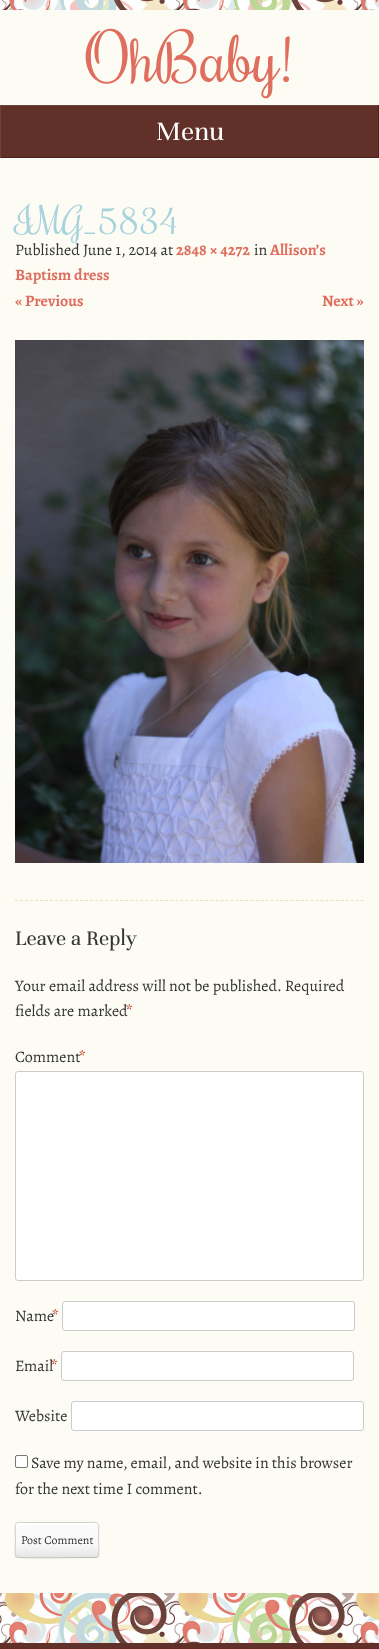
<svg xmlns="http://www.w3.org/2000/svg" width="379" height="1649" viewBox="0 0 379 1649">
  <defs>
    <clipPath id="clip1"><rect x="15" y="1522" width="84" height="36" rx="3"/></clipPath>
    <linearGradient id="g1" gradientUnits="userSpaceOnUse" x1="57" y1="1523" x2="57" y2="1557"><stop offset="0.6" stop-color="#fafafa"/><stop offset="1" stop-color="#e6e6e6"/></linearGradient>
    <linearGradient id="g2" gradientUnits="userSpaceOnUse" x1="57" y1="1557" x2="57" y2="1591"><stop offset="0.6" stop-color="#fafafa"/><stop offset="1" stop-color="#e6e6e6"/></linearGradient>
  </defs>
  <rect width="100%" height="100%" fill="#fcfbf4"/>
  <image x="0" y="0" width="379" height="10" href="img1.png"/>
  <text x="86" y="82" font-family="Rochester" font-size="65" fill="#e06e5f">OhBaby!</text>
  <rect x="1" y="106" width="377" height="51" fill="#603029"/>
  <rect x="0" y="105" width="379" height="1" fill="#6d4238"/>
  <rect x="378" y="105" width="1" height="53" fill="#4c211b"/>
  <rect x="0" y="157" width="379" height="1" fill="#4c211b"/>
  <rect x="0" y="105" width="1" height="53" fill="#6d4238"/>
  <text x="156" y="140" font-family="Unna" font-size="29" fill="#ffffff">Menu</text>
  <text x="15" y="234" font-family="Rochester" font-size="36" fill="#a8d3dd">IMG_5834</text>
  <text x="15" y="255" font-family="Alegreya" font-size="16" fill="#333333">Published June 1, 2014 at</text>
  <text x="176" y="255" font-family="Alegreya" font-size="16" font-weight="bold" fill="#e06e5f">2848 × 4272</text>
  <text x="254" y="255" font-family="Alegreya" font-size="16" fill="#333333">in</text>
  <text x="270" y="255" font-family="Alegreya" font-size="16" font-weight="bold" fill="#e06e5f">Allison’s</text>
  <text x="15" y="280" font-family="Alegreya" font-size="16" font-weight="bold" fill="#e06e5f">Baptism dress</text>
  <text x="15" y="306" font-family="Alegreya" font-size="16" font-weight="bold" fill="#e06e5f">« Previous</text>
  <text x="322" y="306" font-family="Alegreya" font-size="16" font-weight="bold" fill="#e06e5f">Next »</text>
  <image x="15" y="340" width="349" height="523" href="img2.png"/>
  <path d="M15 900.5H364" fill="none" stroke="#e6e1bf" stroke-dasharray="3 2.01"/>
  <text x="15" y="945" font-family="Unna" font-size="22.5" fill="#333333">Leave a Reply</text>
  <text x="15" y="991" font-family="Alegreya" font-size="16" fill="#333333">Your email address will not be published. Required</text>
  <text x="15" y="1016" font-family="Alegreya" font-size="16" fill="#333333">fields are marked</text>
  <text x="126" y="1016" font-family="Alegreya" font-size="16" font-weight="bold" fill="#c4513f">*</text>
  <text x="15" y="1062" font-family="Alegreya" font-size="16" fill="#333333">Comment</text>
  <text x="79" y="1062" font-family="Alegreya" font-size="16" font-weight="bold" fill="#c4513f">*</text>
  <rect x="15.5" y="1071.5" width="348" height="209" rx="2.5" fill="#ffffff" stroke="#cccccc"/>
  <text x="15" y="1321" font-family="Alegreya" font-size="16" fill="#333333">Name</text>
  <text x="52" y="1321" font-family="Alegreya" font-size="16" font-weight="bold" fill="#c4513f">*</text>
  <rect x="62.5" y="1301.5" width="292" height="29" rx="2.5" fill="#ffffff" stroke="#cccccc"/>
  <text x="15" y="1371" font-family="Alegreya" font-size="16" fill="#333333">Email</text>
  <text x="51" y="1371" font-family="Alegreya" font-size="16" font-weight="bold" fill="#c4513f">*</text>
  <rect x="61.5" y="1351.5" width="292" height="29" rx="2.5" fill="#ffffff" stroke="#cccccc"/>
  <text x="15" y="1421" font-family="Alegreya" font-size="16" fill="#333333">Website</text>
  <rect x="71.5" y="1401.5" width="292" height="29" rx="2.5" fill="#ffffff" stroke="#cccccc"/>
  <rect x="15.5" y="1455.5" width="12" height="12" rx="1.5" fill="#ffffff" stroke="#767676"/>
  <text x="31" y="1468" font-family="Alegreya" font-size="16" fill="#333333">Save my name, email, and website in this browser</text>
  <text x="15" y="1494" font-family="Alegreya" font-size="16" fill="#333333">for the next time I comment.</text>
  <g clip-path="url(#clip1)">
    <rect x="15" y="1523" width="84" height="34" fill="url(#g1)"/>
    <rect x="15" y="1557" width="84" height="1" fill="url(#g2)"/>
  </g>
  <path d="M18 1525H96C97 1525 98 1526 98 1527V1525C98 1524 97 1523 96 1523H18C17 1523 16 1524 16 1525V1527C16 1526 17 1525 18 1525Z" fill="#ffffff"/>
  <path d="M98 1557L96 1557.5H83C76 1557.5 18.5 1558.5 16.5 1557H16" fill="none" stroke="#bbbbbb"/>
  <path d="M16 1557C14.5 1555 15.5 1543 15.5 1540C15.5 1519.5 11.5 1522.5 31 1522.5H83C102.5 1522.5 98.5 1519.5 98.5 1540C98.5 1543 99.5 1555 98 1557" fill="none" stroke="#cccccc"/>
  <text x="21" y="1544" font-family="Alegreya" font-size="12" fill="#333333">Post Comment</text>
  <rect x="0" y="1643" width="379" height="6" fill="#603029"/>
  <image x="0" y="1593" width="379" height="50" href="img3.png"/>
</svg>
